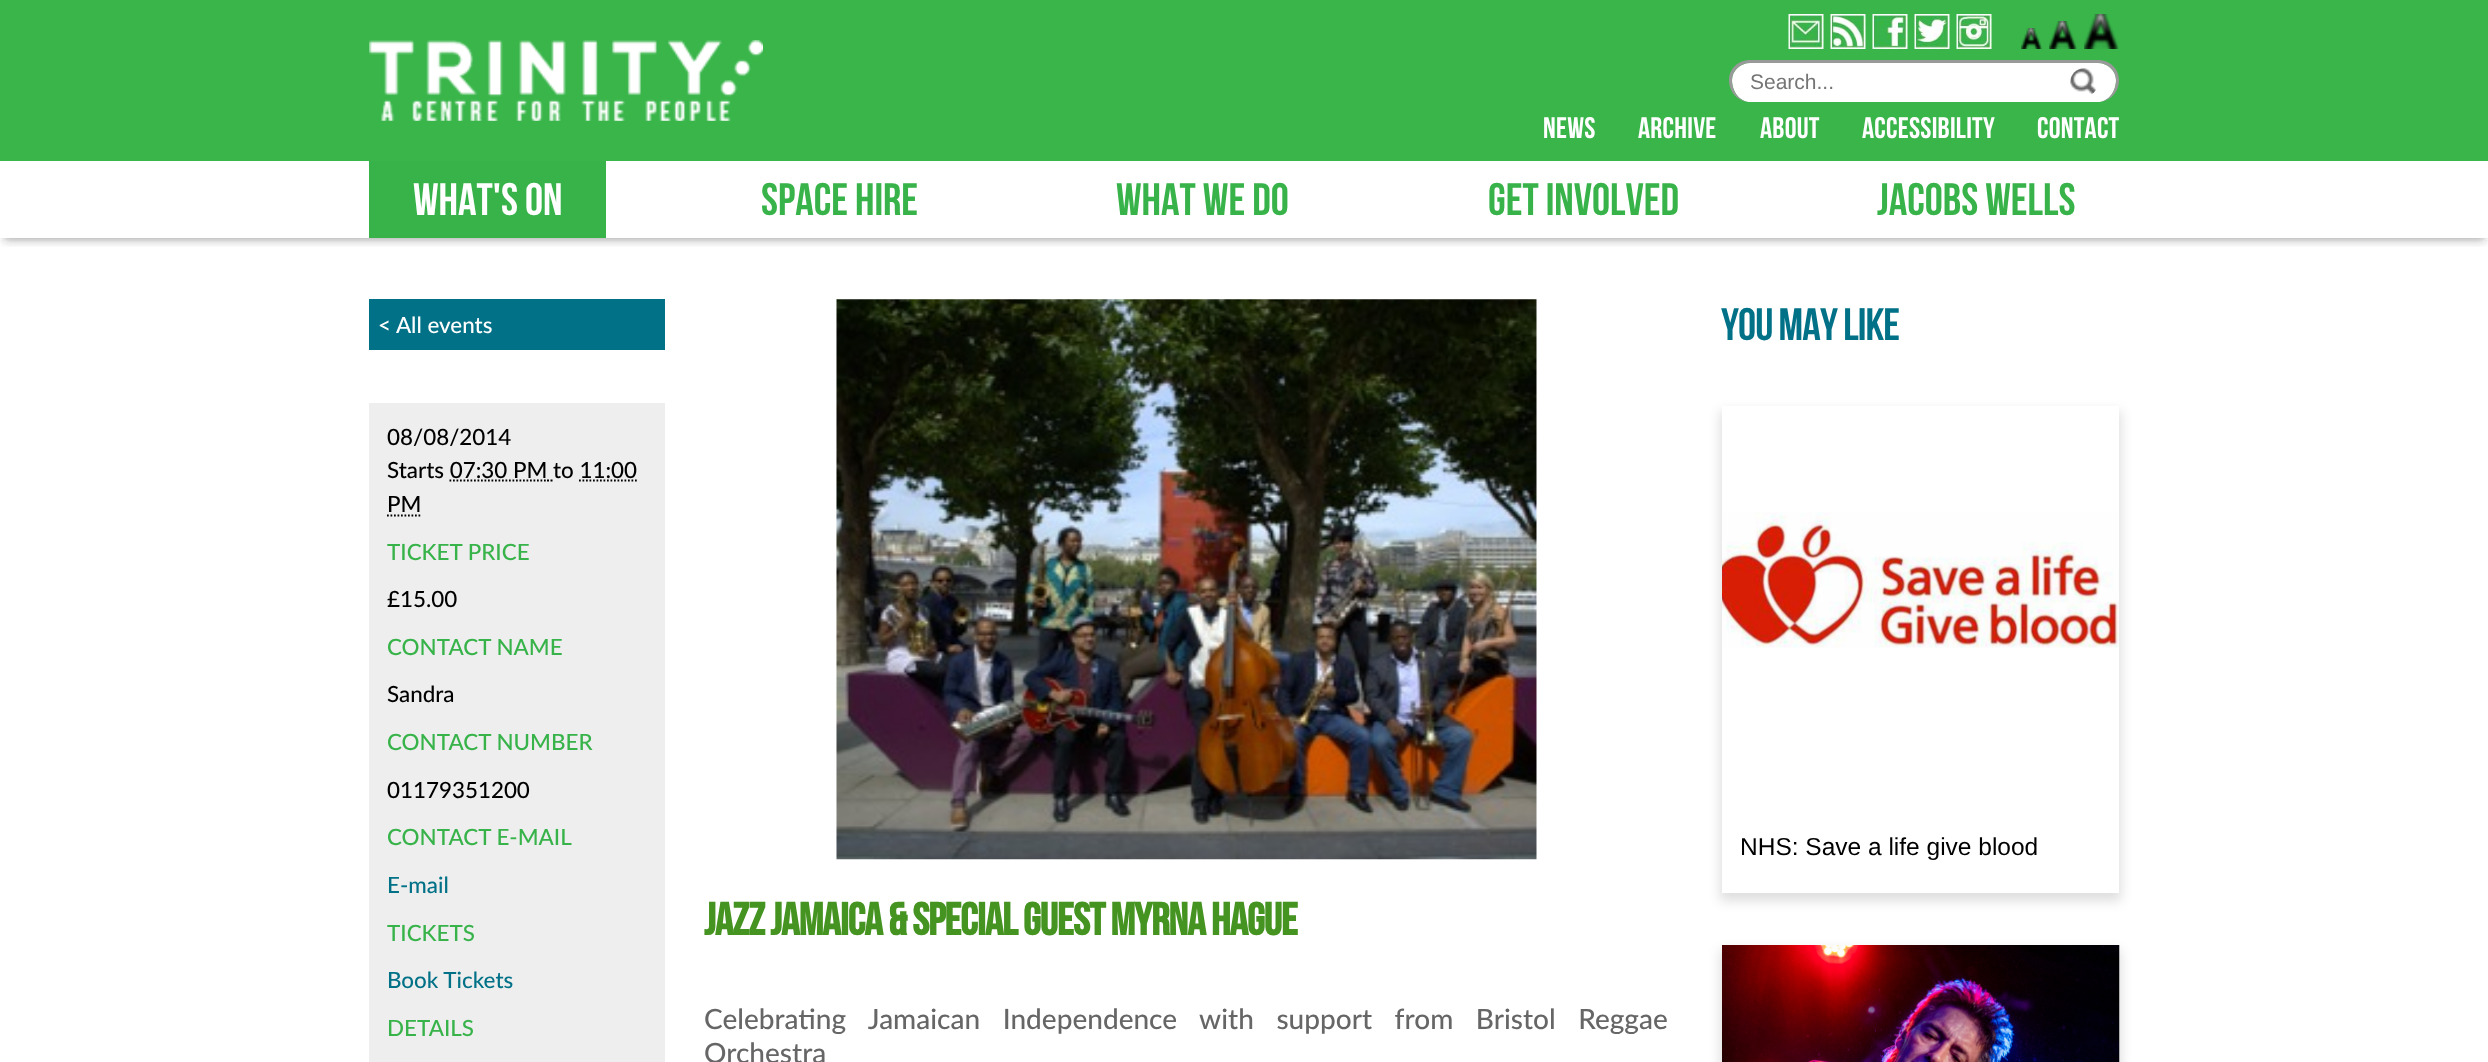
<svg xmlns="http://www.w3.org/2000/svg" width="2488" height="1062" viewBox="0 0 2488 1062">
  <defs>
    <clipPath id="clip1"><rect x="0" y="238" width="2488" height="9"/></clipPath>
    <filter id="blur1" x="-50%" y="-200%" width="200%" height="500%"><feGaussianBlur stdDeviation="4.5"/></filter>
    <clipPath id="clip2"><path d="M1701 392H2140V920H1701ZM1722 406H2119V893H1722Z" clip-rule="evenodd"/></clipPath>
    <filter id="blur2" x="-50%" y="-200%" width="200%" height="500%"><feGaussianBlur stdDeviation="6"/></filter>
  </defs>
  <rect width="100%" height="100%" fill="#ffffff"/>
  <rect x="0" y="0" width="2488" height="161" fill="#39b54a"/>
  <image x="369" y="40" width="394" height="81" href="img1.png"/>
  <image x="1788" y="14" width="36" height="35" href="img2.png"/>
  <image x="1830" y="14" width="36" height="35" href="img3.png"/>
  <image x="1872" y="14" width="36" height="35" href="img4.png"/>
  <image x="1914" y="14" width="36" height="35" href="img5.png"/>
  <image x="1956" y="14" width="36" height="35" href="img6.png"/>
  <image x="2021" y="28" width="22" height="21" href="img7.png"/>
  <image x="2049" y="21" width="29" height="28" href="img8.png"/>
  <image x="2084" y="14" width="35" height="35" href="img9.png"/>
  <path d="M1750 63H2098C2108 63 2116 71 2116 80C2116 92 2108 102 2098 102H1750C1740 102 1732 92 1732 80C1732 71 1740 63 1750 63Z" fill="#ffffff"/>
  <path d="M1750 60H2098C2110 60 2119 69 2119 80C2119 92 2110 102 2098 102H1750C1738 102 1729 92 1729 80C1729 69 1738 60 1750 60ZM1750 63H2098C2108 63 2116 71 2116 80C2116 92 2108 102 2098 102H1750C1740 102 1732 92 1732 80C1732 71 1740 63 1750 63Z" fill="#999999" fill-rule="evenodd"/>
  <text x="1750" y="89" font-family="Liberation Sans" font-size="21" fill="#757575">Search...</text>
  <image x="2070" y="68" width="27" height="27" href="img10.png"/>
  <text x="1543" y="138" font-family="Bebas Neue" font-size="29.75" letter-spacing="0.25" fill="#ffffff">news</text>
  <text x="1638" y="138" font-family="Bebas Neue" font-size="29.75" letter-spacing="0.25" fill="#ffffff">archive</text>
  <text x="1760" y="138" font-family="Bebas Neue" font-size="29.75" letter-spacing="0.25" fill="#ffffff">about</text>
  <text x="1862" y="138" font-family="Bebas Neue" font-size="29.75" letter-spacing="0.25" fill="#ffffff">accessibility</text>
  <text x="2037" y="138" font-family="Bebas Neue" font-size="29.75" letter-spacing="0.25" fill="#ffffff">contact</text>
  <g clip-path="url(#clip1)">
    <rect x="4" y="170" width="2481" height="70" fill="#323232" fill-opacity="0.41" filter="url(#blur1)"/>
  </g>
  <rect x="369" y="161" width="237" height="77" fill="#37b34a"/>
  <text x="413" y="215" font-family="Bebas Neue" font-size="45.5" fill="#ffffff">WHAT'S ON</text>
  <text x="761" y="215" font-family="Bebas Neue" font-size="45.5" fill="#37b34a">SPACE HIRE</text>
  <text x="1116" y="215" font-family="Bebas Neue" font-size="45.5" fill="#37b34a">WHAT WE DO</text>
  <text x="1488" y="215" font-family="Bebas Neue" font-size="45.5" fill="#37b34a">GET INVOLVED</text>
  <text x="1877" y="215" font-family="Bebas Neue" font-size="45.5" fill="#37b34a">JACOBS WELLS</text>
  <rect x="369" y="299" width="296" height="51" fill="#007187"/>
  <text x="378" y="333" font-family="Lato" font-size="22.4" font-weight="500" fill="#ffffff">&lt; All events</text>
  <rect x="369" y="403" width="296" height="659" fill="#eeeeee"/>
  <text x="387" y="445" font-family="Lato" font-size="22.4" font-weight="500" fill="#000000">08/08/2014</text>
  <text x="387" y="478" font-family="Lato" font-size="22.4" font-weight="500" fill="#000000">Starts 07:30 PM to 11:00</text>
  <path d="M449.5 480.5H547" fill="none" stroke="#000000" stroke-width="1.8" stroke-dasharray="1.75 1.75"/>
  <path d="M547 480.5H549M550.5 480.5H552.5" fill="none" stroke="#000000" stroke-width="1.8"/>
  <text x="387" y="512" font-family="Lato" font-size="22.4" font-weight="500" fill="#000000">PM</text>
  <path d="M579 480.5H637" fill="none" stroke="#000000" stroke-width="1.8" stroke-dasharray="1.75 1.75"/>
  <path d="M387 515.5H421" fill="none" stroke="#000000" stroke-width="1.8" stroke-dasharray="1.75 1.75"/>
  <text x="387" y="560" font-family="Lato" font-size="22.4" font-weight="500" fill="#37b34a">TICKET PRICE</text>
  <text x="387" y="607" font-family="Lato" font-size="22.4" font-weight="500" fill="#000000">£15.00</text>
  <text x="387" y="655" font-family="Lato" font-size="22.4" font-weight="500" fill="#37b34a">CONTACT NAME</text>
  <text x="387" y="702" font-family="Lato" font-size="22.4" font-weight="500" fill="#000000">Sandra</text>
  <text x="387" y="750" font-family="Lato" font-size="22.4" font-weight="500" fill="#37b34a">CONTACT NUMBER</text>
  <text x="387" y="798" font-family="Lato" font-size="22.4" font-weight="500" fill="#000000">01179351200</text>
  <text x="387" y="845" font-family="Lato" font-size="22.4" font-weight="500" fill="#37b34a">CONTACT E-MAIL</text>
  <text x="387" y="893" font-family="Lato" font-size="22.4" font-weight="500" fill="#007187">E-mail</text>
  <text x="387" y="941" font-family="Lato" font-size="22.4" font-weight="500" fill="#37b34a">TICKETS</text>
  <text x="387" y="988" font-family="Lato" font-size="22.4" font-weight="500" fill="#007187">Book Tickets</text>
  <text x="387" y="1036" font-family="Lato" font-size="22.4" font-weight="500" fill="#37b34a">DETAILS</text>
  <image x="836" y="299" width="701" height="561" href="img11.png"/>
  <text x="704" y="935" font-family="Bebas Neue" font-size="45.5" font-weight="bold" letter-spacing="-0.9" fill="#459320">Jazz Jamaica &amp; special guest Myrna Hague</text>
  <text x="704" y="1029" word-spacing="15.5" font-family="Lato" font-size="28" font-weight="500" fill="#666666">Celebrating Jamaican Independence with support from Bristol Reggae</text>
  <text x="704" y="1063" font-family="Lato" font-size="28" font-weight="500" fill="#666666">Orchestra</text>
  <text x="1721" y="340" font-family="Bebas Neue" font-size="45.5" letter-spacing="-0.9" fill="#007187">YOU MAY LIKE</text>
  <g clip-path="url(#clip2)">
    <rect x="1720" y="411" width="401" height="490" fill="#120d0a" fill-opacity="0.13" filter="url(#blur2)"/>
  </g>
  <image x="1722" y="512" width="397" height="136" href="img12.png"/>
  <text x="1740" y="855" font-family="Liberation Sans" font-size="24.5" fill="#000000">NHS: Save a life give blood</text>
  <rect x="1720" y="950" width="401" height="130" fill="#120d0a" fill-opacity="0.13" filter="url(#blur2)"/>
  <image x="1722" y="945" width="398" height="117" href="img13.png"/>
</svg>
